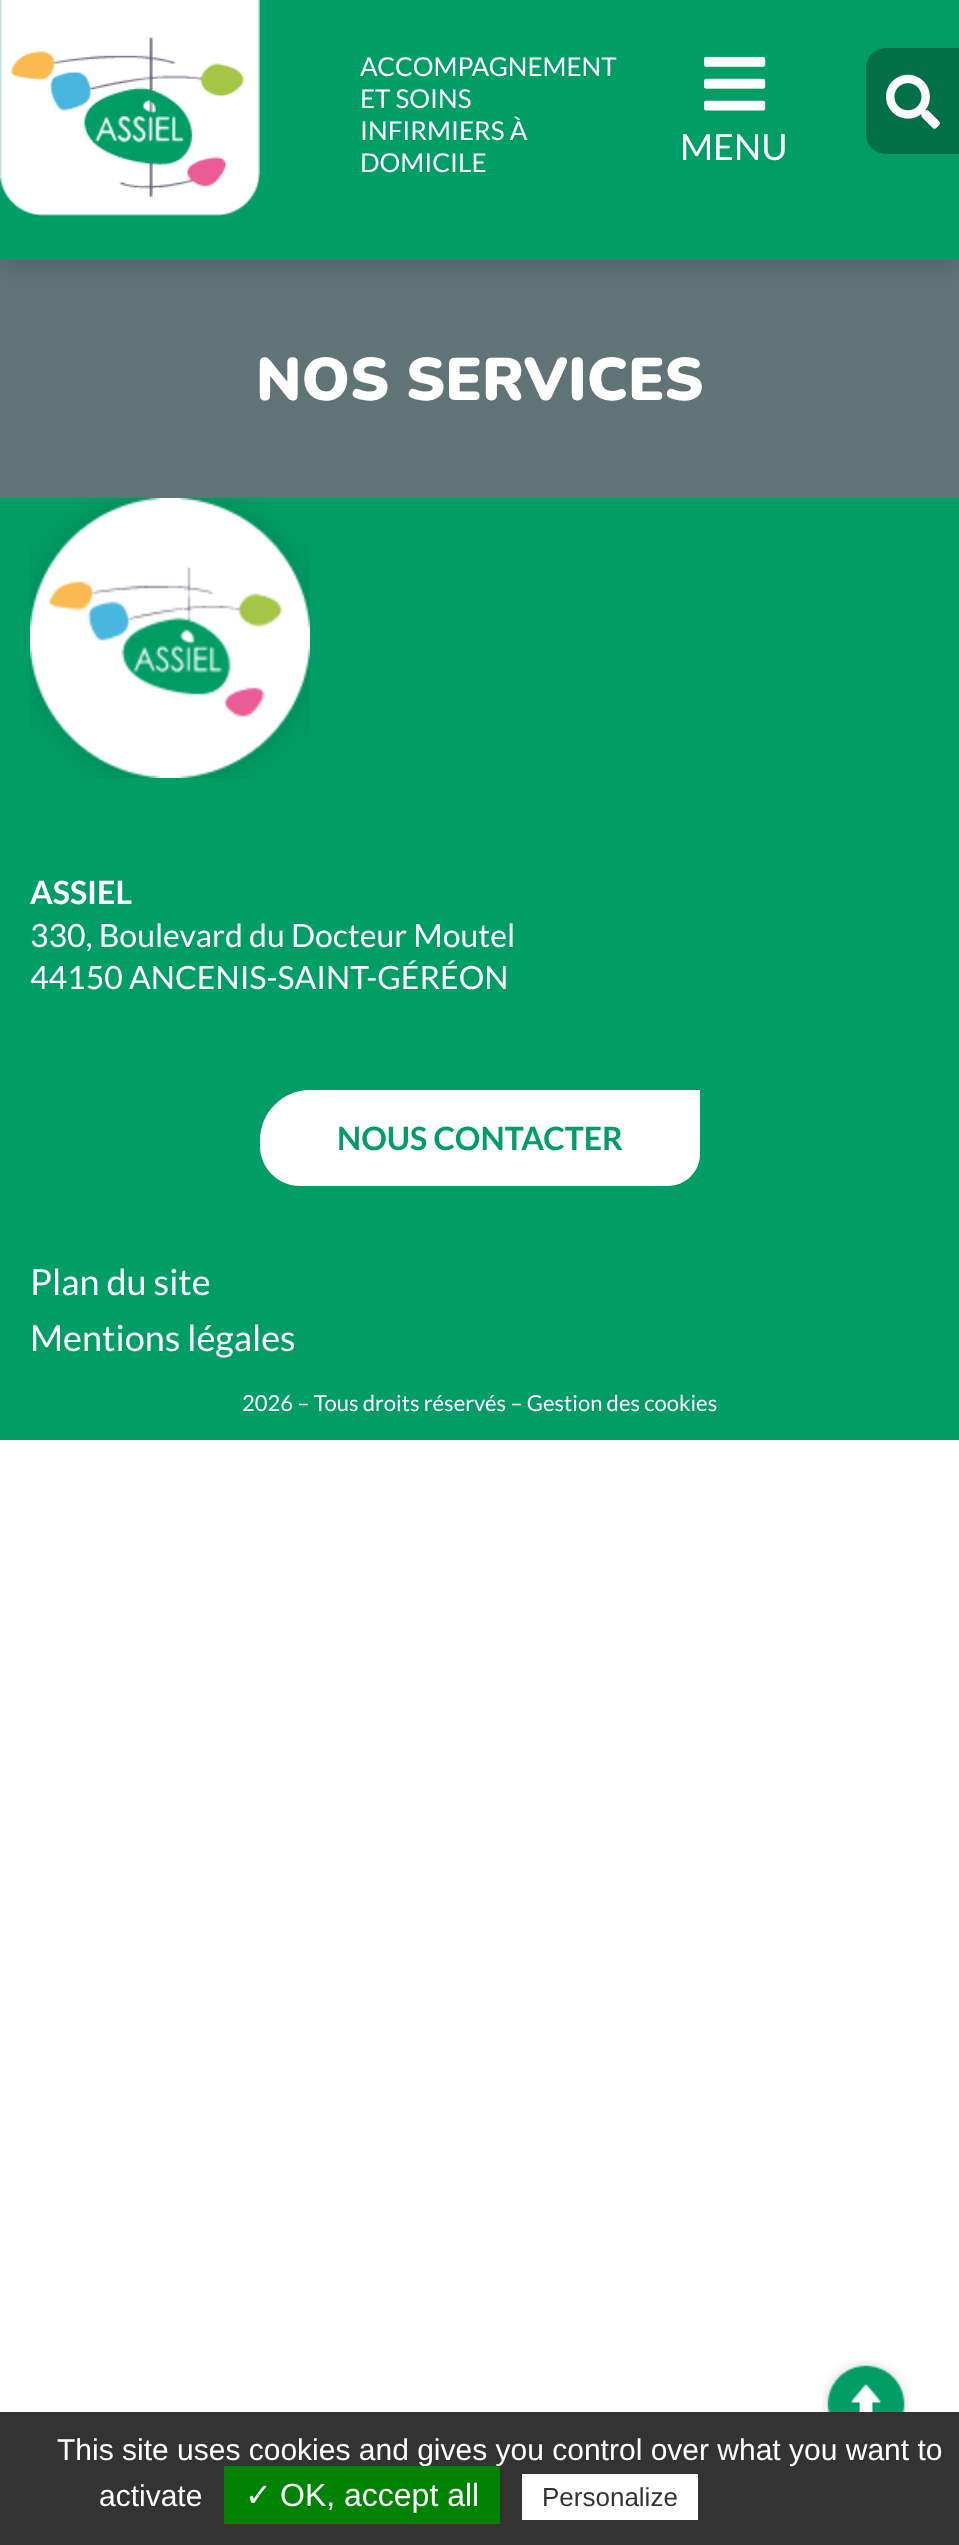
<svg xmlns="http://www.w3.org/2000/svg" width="959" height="2545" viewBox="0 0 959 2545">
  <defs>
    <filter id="blur1" x="-50%" y="-200%" width="200%" height="500%"><feGaussianBlur stdDeviation="15"/></filter>
  </defs>
  <rect width="100%" height="100%" fill="#ffffff"/>
  <rect x="0" y="260" width="959" height="238" fill="#607477"/>
  <rect x="0" y="0" width="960" height="260" fill="#000000" fill-opacity="0.25" filter="url(#blur1)"/>
  <rect x="0" y="0" width="959" height="260" fill="#019d66"/>
  <image x="0" y="0" width="260" height="216" href="img1.png"/>
  <text x="360" y="76" font-family="Lato" font-size="26" fill="#ffffff">ACCOMPAGNEMENT</text>
  <text x="360" y="108" font-family="Lato" font-size="26" fill="#ffffff">ET SOINS</text>
  <text x="360" y="140" font-family="Lato" font-size="26" fill="#ffffff">INFIRMIERS À</text>
  <text x="360" y="172" font-family="Lato" font-size="26" fill="#ffffff">DOMICILE</text>
  <image x="704" y="56" width="62" height="55" href="img2.png"/>
  <text x="680" y="160" font-family="Lato" font-size="36" fill="#ffffff">MENU</text>
  <path d="M886 48H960V154H886C875 154 866 145 866 134V68C866 57 875 48 886 48Z" fill="#016f48"/>
  <image x="886" y="74" width="54" height="55" href="img3.png"/>
  <text x="256" y="400" font-family="Nunito" font-size="60" font-weight="200" fill="#ffffff">NOS SERVICES</text>
  <rect x="0" y="498" width="959" height="942" fill="#019d66"/>
  <image x="30" y="498" width="280" height="280" href="img4.png"/>
  <text x="30" y="904" font-family="Lato" font-size="32" font-weight="bold" fill="#ffffff">ASSIEL</text>
  <text x="30" y="947" font-family="Lato" font-size="32" fill="#ffffff">330, Boulevard du Docteur Moutel</text>
  <text x="30" y="989" font-family="Lato" font-size="32" fill="#ffffff">44150 ANCENIS-SAINT-GÉRÉON</text>
  <path d="M310 1090H700V1154C700 1171.5 685.5 1186 668 1186H300C278 1186 260 1168 260 1146V1140C260 1112.5 282.5 1090 310 1090Z" fill="#ffffff"/>
  <text x="337" y="1150" font-family="Lato" font-size="32" font-weight="bold" fill="#019d66">NOUS CONTACTER</text>
  <text x="30" y="1295" font-family="Lato" font-size="36" fill="#ffffff">Plan du site</text>
  <text x="30" y="1351" font-family="Lato" font-size="36" fill="#ffffff">Mentions légales</text>
  <text x="242" y="1411" font-family="Lato" font-size="22" fill="#ffffff">2026 – Tous droits réservés – Gestion des cookies</text>
  <image x="822" y="2360" width="89" height="52" href="img5.png"/>
  <rect x="0" y="2412" width="959" height="133" fill="#333333"/>
  <text x="57" y="2460" font-family="Liberation Sans" font-size="30" fill="#ffffff">This site uses cookies and gives you control over what you want to</text>
  <text x="99" y="2506" font-family="Liberation Sans" font-size="30" fill="#ffffff">activate</text>
  <rect x="224" y="2466" width="276" height="58" fill="#008300"/>
  <text x="245" y="2506" font-family="DejaVu Sans" font-size="32" fill="#ffffff">✓</text>
  <text x="280" y="2506" font-family="Liberation Sans" font-size="32" fill="#ffffff">OK, accept all</text>
  <rect x="522" y="2474" width="176" height="46" fill="#ffffff"/>
  <text x="542" y="2506" font-family="Liberation Sans" font-size="26" fill="#333333">Personalize</text>
</svg>
